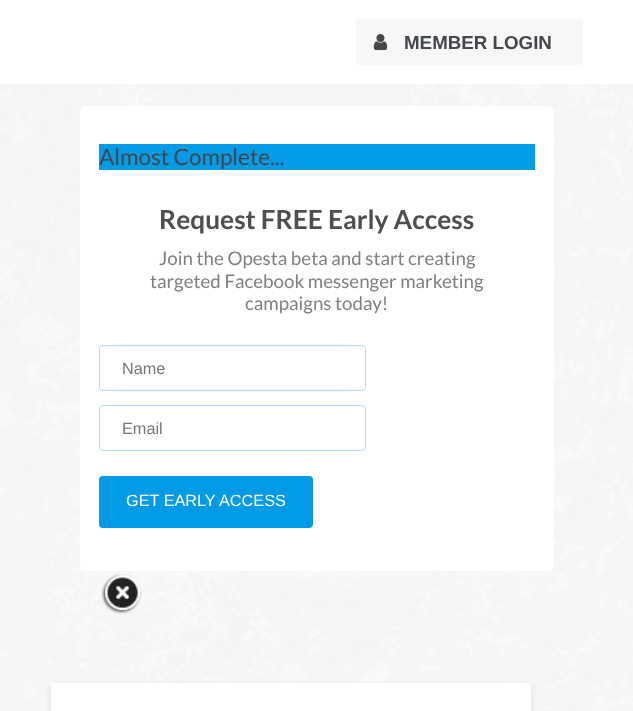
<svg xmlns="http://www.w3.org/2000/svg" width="633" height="711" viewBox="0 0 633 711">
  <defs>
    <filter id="blur1" x="-50%" y="-200%" width="200%" height="500%"><feGaussianBlur stdDeviation="3"/></filter>
  </defs>
  <rect width="100%" height="100%" fill="#ffffff"/>
  <image x="0" y="84" width="633" height="627" href="img1.png"/>
  <rect x="356" y="19" width="227" height="46" rx="4" fill="#f7f7f7"/>
  <image x="373" y="34" width="15" height="17" href="img2.png"/>
  <text x="404" y="49" font-family="Liberation Sans" font-size="18.75" font-weight="bold" fill="#43464b">MEMBER LOGIN</text>
  <rect x="80" y="106" width="474" height="465" rx="6" fill="#ffffff"/>
  <rect x="99" y="144" width="436" height="26" fill="#039be5"/>
  <text x="99" y="165" font-family="Lato" font-size="22.5" fill="#43464b">Almost Complete...</text>
  <text x="159" y="229" font-family="Lato" font-size="26.25" font-weight="bold" fill="#4e4e4e">Request FREE Early Access</text>
  <text x="159" y="265" font-family="Lato" font-size="18.75" fill="#807f7f">Join the Opesta beta and start creating</text>
  <text x="150" y="288" font-family="Lato" font-size="18.75" fill="#807f7f">targeted Facebook messenger marketing</text>
  <text x="245" y="310" font-family="Lato" font-size="18.75" fill="#807f7f">campaigns today!</text>
  <rect x="99.5" y="345.5" width="266" height="45" rx="3.5" fill="none" stroke="#aedcf3"/>
  <text x="122" y="374" font-family="Liberation Sans" font-size="16.25" fill="#757575">Name</text>
  <rect x="99.5" y="405.5" width="266" height="45" rx="3.5" fill="none" stroke="#aedcf3"/>
  <text x="122" y="434" font-family="Liberation Sans" font-size="16.25" fill="#757575">Email</text>
  <rect x="99" y="476" width="214" height="52" rx="4" fill="#039be5"/>
  <text x="126" y="506" font-family="Liberation Sans" font-size="16.25" fill="#ffffff">GET EARLY ACCESS</text>
  <image x="101" y="574" width="41" height="40" href="img3.png"/>
  <rect x="51" y="686" width="480" height="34" fill="#000101" fill-opacity="0.1" filter="url(#blur1)"/>
  <rect x="51" y="683" width="480" height="28" fill="#ffffff"/>
</svg>
